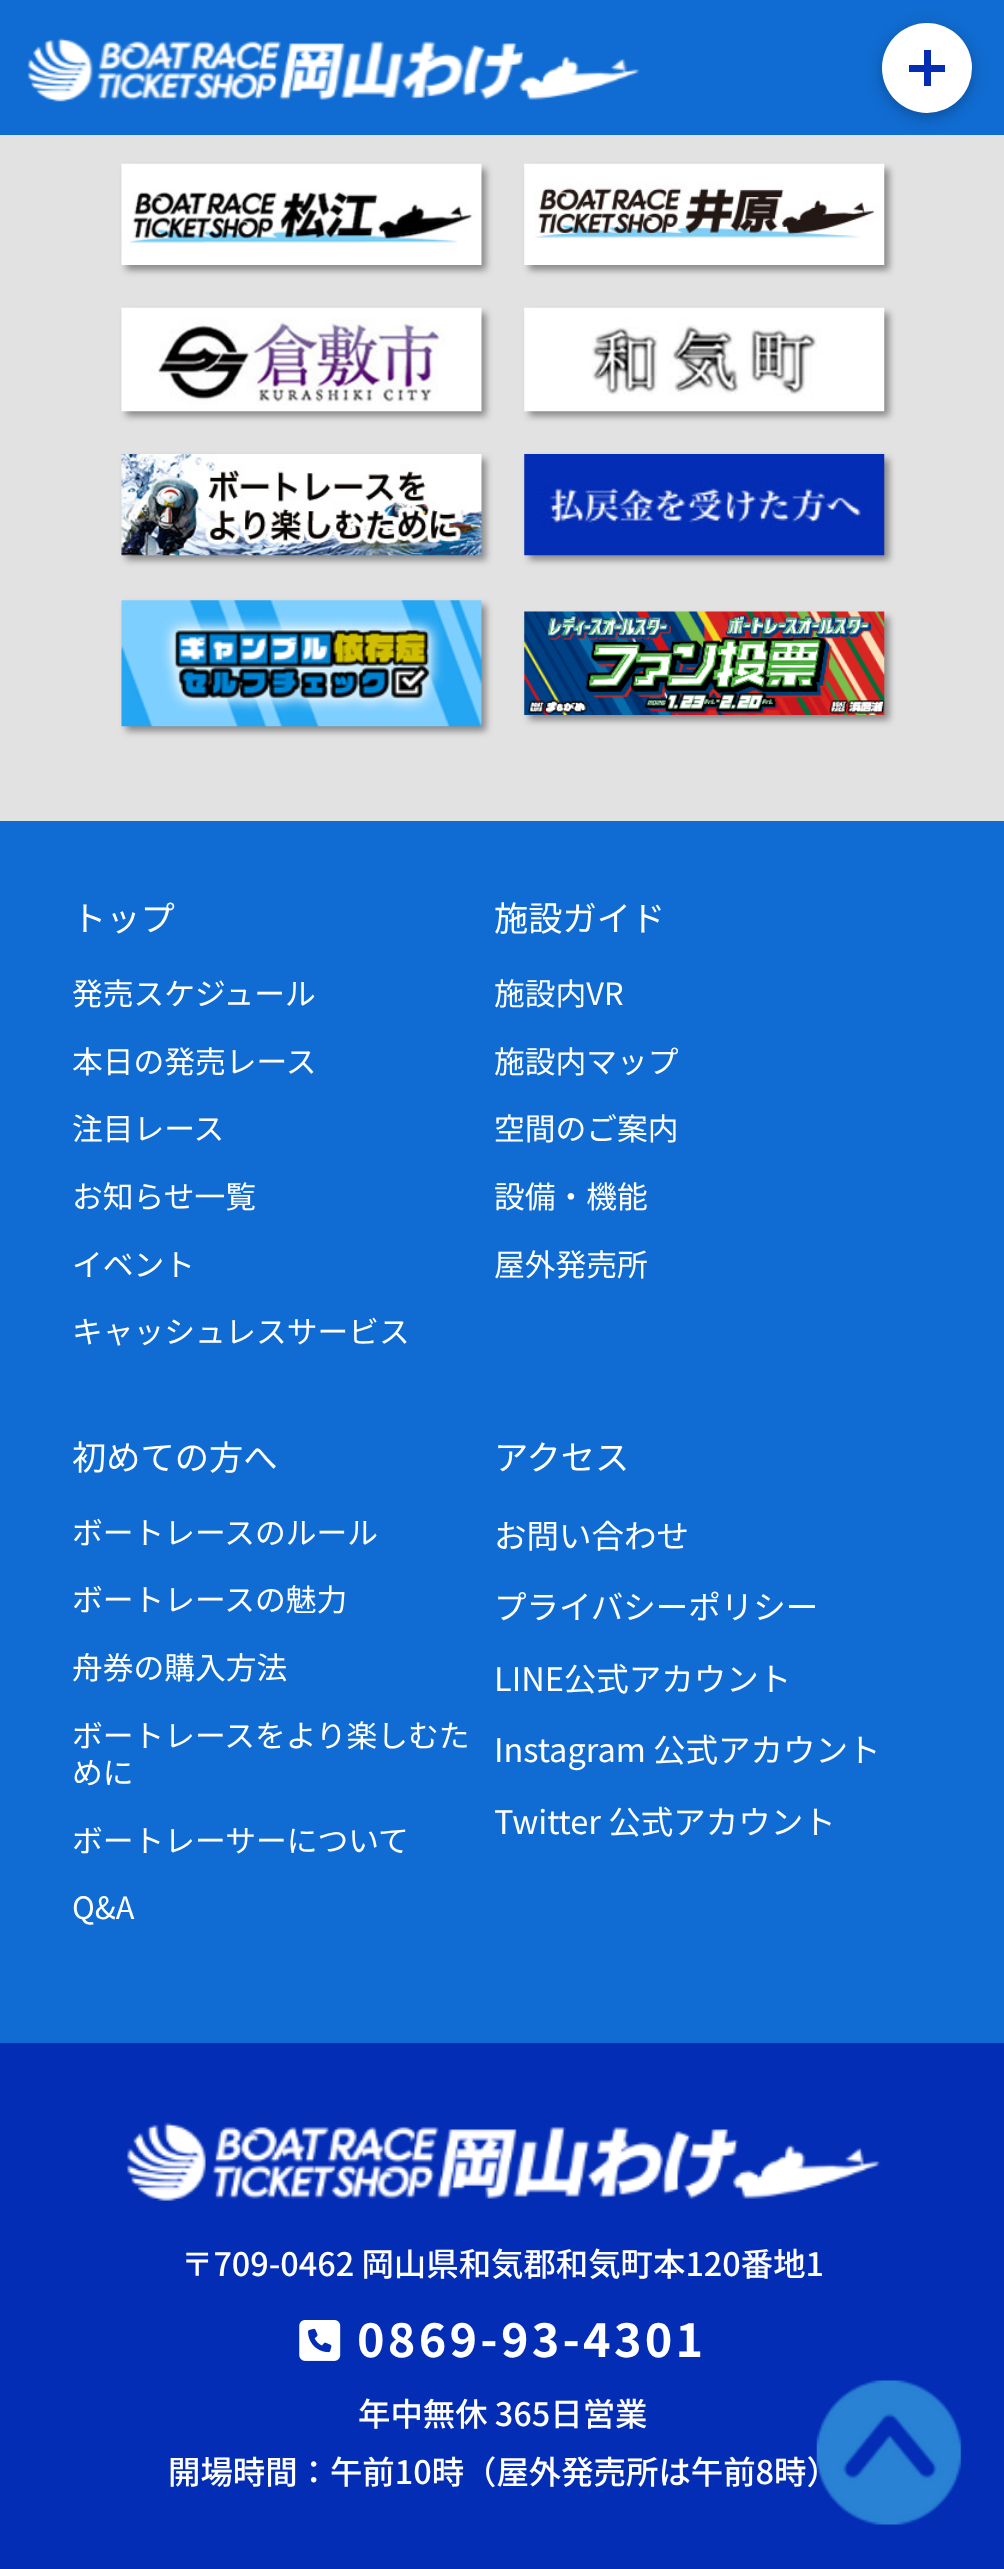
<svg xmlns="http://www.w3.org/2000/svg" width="1004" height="2569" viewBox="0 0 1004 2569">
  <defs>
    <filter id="blur1" x="-50%" y="-200%" width="200%" height="500%"><feGaussianBlur stdDeviation="11"/></filter>
    <filter id="blur2" x="-50%" y="-200%" width="200%" height="500%"><feGaussianBlur stdDeviation="5.5"/></filter>
    <filter id="blur3" x="-50%" y="-200%" width="200%" height="500%"><feGaussianBlur stdDeviation="3.5"/></filter>
  </defs>
  <rect width="100%" height="100%" fill="#032db5"/>
  <rect x="0" y="0" width="1004" height="135" fill="#106cd2"/>
  <image x="27" y="38" width="613" height="64" href="img1.png"/>
  <rect x="0" y="135" width="1004" height="686" fill="#e2e2e2"/>
  <rect x="882" y="27" width="90" height="90" rx="45" fill="#000000" fill-opacity="0.12" filter="url(#blur1)"/>
  <rect x="882" y="27" width="90" height="90" rx="45" fill="#000000" fill-opacity="0.16" filter="url(#blur2)"/>
  <circle cx="927" cy="68" r="45" fill="#ffffff"/>
  <rect x="924" y="50" width="7" height="36" fill="#032db5"/>
  <rect x="909" y="65" width="36" height="7" fill="#032db5"/>
  <rect x="126" y="169" width="360" height="101" fill="#000000" fill-opacity="0.4" filter="url(#blur3)"/>
  <image x="121" y="163" width="361" height="102" href="img2.png"/>
  <rect x="529" y="169" width="360" height="101" fill="#000000" fill-opacity="0.4" filter="url(#blur3)"/>
  <image x="524" y="163" width="361" height="102" href="img3.png"/>
  <rect x="126" y="313" width="360" height="103" fill="#000000" fill-opacity="0.4" filter="url(#blur3)"/>
  <image x="121" y="307" width="361" height="105" href="img4.png"/>
  <rect x="529" y="313" width="360" height="103" fill="#000000" fill-opacity="0.4" filter="url(#blur3)"/>
  <image x="524" y="307" width="361" height="105" href="img5.png"/>
  <rect x="126" y="459" width="360" height="101" fill="#000000" fill-opacity="0.4" filter="url(#blur3)"/>
  <image x="121" y="454" width="361" height="102" href="img6.png"/>
  <rect x="529" y="459" width="360" height="101" fill="#000000" fill-opacity="0.4" filter="url(#blur3)"/>
  <image x="524" y="454" width="361" height="102" href="img7.png"/>
  <rect x="126" y="605" width="360" height="126" fill="#000000" fill-opacity="0.4" filter="url(#blur3)"/>
  <image x="121" y="600" width="361" height="127" href="img8.png"/>
  <rect x="529" y="617" width="360" height="103" fill="#000000" fill-opacity="0.4" filter="url(#blur3)"/>
  <image x="524" y="611" width="361" height="104" href="img9.png"/>
  <rect x="0" y="821" width="1004" height="1222" fill="#106cd2"/>
  <text x="72" y="931" font-family="Noto Sans JP" font-size="34.25" fill="#ffffff">トップ</text>
  <text x="72" y="1005" font-family="Noto Sans JP" font-size="30.75" fill="#ffffff">発売スケジュール</text>
  <text x="72" y="1073" font-family="Noto Sans JP" font-size="30.75" fill="#ffffff">本日の発売レース</text>
  <text x="72" y="1140" font-family="Noto Sans JP" font-size="30.75" fill="#ffffff">注目レース</text>
  <text x="72" y="1208" font-family="Noto Sans JP" font-size="30.75" fill="#ffffff">お知らせ一覧</text>
  <text x="72" y="1276" font-family="Noto Sans JP" font-size="30.75" fill="#ffffff">イベント</text>
  <text x="72" y="1343" font-family="Noto Sans JP" font-size="30.75" fill="#ffffff">キャッシュレスサービス</text>
  <text x="494" y="931" font-family="Noto Sans JP" font-size="34.25" fill="#ffffff">施設ガイド</text>
  <text x="494" y="1005" font-family="Noto Sans JP" font-size="30.75" fill="#ffffff">施設内VR</text>
  <text x="494" y="1073" font-family="Noto Sans JP" font-size="30.75" fill="#ffffff">施設内マップ</text>
  <text x="494" y="1140" font-family="Noto Sans JP" font-size="30.75" fill="#ffffff">空間のご案内</text>
  <text x="494" y="1208" font-family="Noto Sans JP" font-size="30.75" fill="#ffffff">設備・機能</text>
  <text x="494" y="1276" font-family="Noto Sans JP" font-size="30.75" fill="#ffffff">屋外発売所</text>
  <text x="72" y="1470" font-family="Noto Sans JP" font-size="34.25" fill="#ffffff">初めての方へ</text>
  <text x="72" y="1544" font-family="Noto Sans JP" font-size="30.75" fill="#ffffff">ボートレースのルール</text>
  <text x="72" y="1611" font-family="Noto Sans JP" font-size="30.75" fill="#ffffff">ボートレースの魅力</text>
  <text x="72" y="1679" font-family="Noto Sans JP" font-size="30.75" fill="#ffffff">舟券の購入方法</text>
  <text x="72" y="1747" font-family="Noto Sans JP" font-size="30.75" fill="#ffffff">ボートレースをより楽しむた</text>
  <text x="72" y="1784" font-family="Noto Sans JP" font-size="30.75" fill="#ffffff">めに</text>
  <text x="72" y="1852" font-family="Noto Sans JP" font-size="30.75" fill="#ffffff">ボートレーサーについて</text>
  <text x="72" y="1919" font-family="Noto Sans JP" font-size="30.75" fill="#ffffff">Q&amp;A</text>
  <text x="494" y="1470" font-family="Noto Sans JP" font-size="34.25" fill="#ffffff">アクセス</text>
  <text x="494" y="1548" font-family="Noto Sans JP" font-size="32.5" fill="#ffffff">お問い合わせ</text>
  <text x="494" y="1619" font-family="Noto Sans JP" font-size="32.5" fill="#ffffff">プライバシーポリシー</text>
  <text x="494" y="1691" font-family="Noto Sans JP" font-size="32.5" fill="#ffffff">LINE公式アカウント</text>
  <text x="494" y="1762" font-family="Noto Sans JP" font-size="32.5" fill="#ffffff">Instagram 公式アカウント</text>
  <text x="494" y="1834" font-family="Noto Sans JP" font-size="32.5" fill="#ffffff">Twitter 公式アカウント</text>
  <image x="126" y="2122" width="755" height="79" href="img10.png"/>
  <text x="181" y="2276" font-family="Noto Sans JP" font-size="32.4" font-weight="500" fill="#ffffff">〒709-0462 岡山県和気郡和気町本120番地1</text>
  <image x="299" y="2320" width="42" height="41" href="img11.png"/>
  <text x="357" y="2357" font-family="Noto Sans JP" font-size="46.75" font-weight="bold" letter-spacing="3.25" fill="#ffffff">0869-93-4301</text>
  <text x="358" y="2426" font-family="Noto Sans JP" font-size="32.4" font-weight="500" fill="#ffffff">年中無休 365日営業</text>
  <text x="168" y="2484" font-family="Noto Sans JP" font-size="32.4" font-weight="500" fill="#ffffff">開場時間：午前10時（屋外発売所は午前8時）</text>
  <image x="816" y="2380" width="145" height="145" href="img12.png"/>
</svg>
